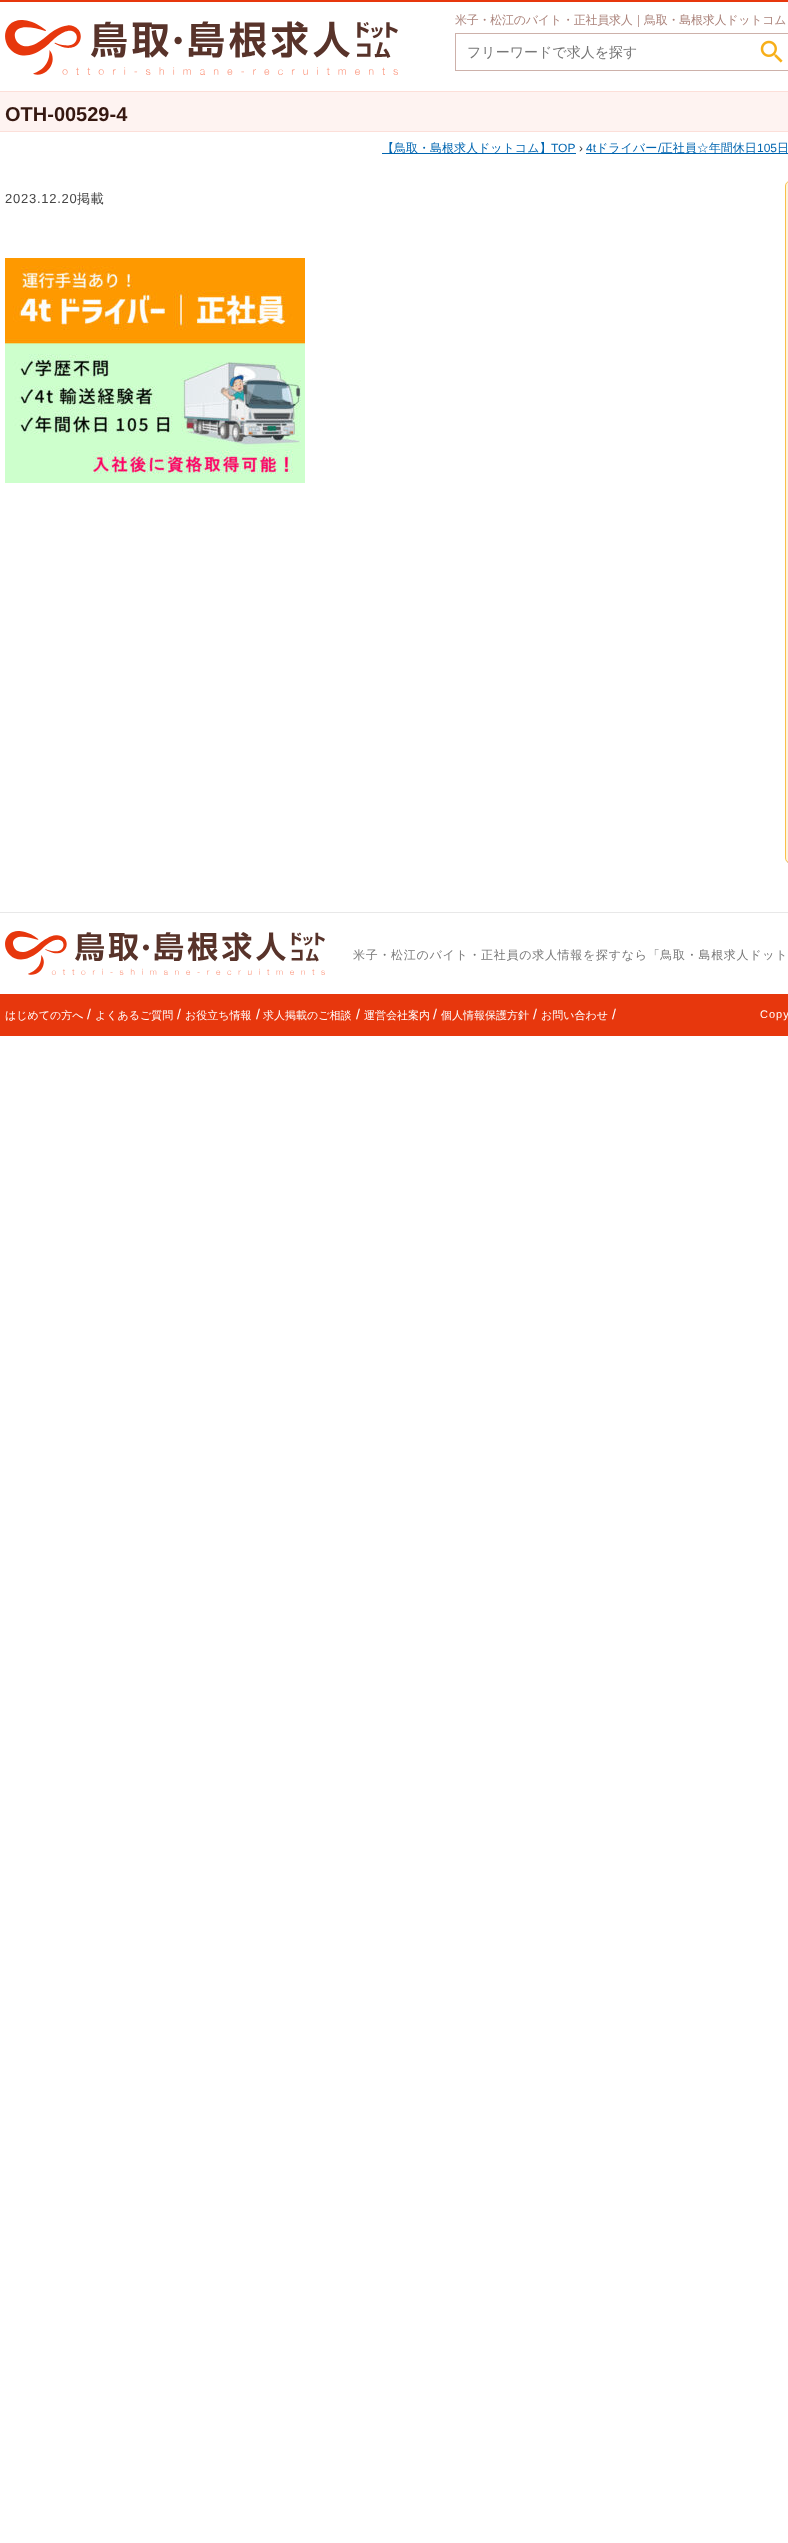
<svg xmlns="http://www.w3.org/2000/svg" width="788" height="2543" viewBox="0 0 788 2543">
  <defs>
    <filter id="blur1" x="-50%" y="-200%" width="200%" height="500%"><feGaussianBlur stdDeviation="0.5"/></filter>
  </defs>
  <rect width="100%" height="100%" fill="#ffffff"/>
  <rect x="0" y="0" width="788" height="2" fill="#e7370d"/>
  <image x="5" y="20" width="393" height="55" href="img1.png"/>
  <text x="455" y="24" font-family="WenQuanYi Zen Hei" font-size="12" font-weight="500" letter-spacing="-0.25" fill="#ab837b">米子・松江のバイト・正社員求人｜鳥取・島根求人ドットコム</text>
  <rect x="455.5" y="33.5" width="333" height="37" fill="none" stroke="#cdb1aa"/>
  <text x="467" y="57" font-family="WenQuanYi Zen Hei" font-size="14" font-weight="500" fill="#777777">フリーワードで求人を探す</text>
  <image x="760" y="40" width="23" height="23" href="img2.png"/>
  <rect x="0" y="92" width="788" height="39" fill="#fef3f1"/>
  <rect x="0" y="91" width="788" height="1" fill="#fcdfd9"/>
  <rect x="0" y="131" width="788" height="1" fill="#fcdfd9"/>
  <text x="5" y="121" font-family="Liberation Sans" font-size="20" font-weight="bold" fill="#361811">OTH-00529-4</text>
  <rect x="382" y="153" width="194" height="1" fill="#0165b0"/>
  <text x="382" y="152" font-family="WenQuanYi Zen Hei" font-size="12" font-weight="500" fill="#0165b0">【鳥取・島根求人ドットコム】</text>
  <text x="551" y="152" font-family="Liberation Sans" font-size="12" fill="#0165b0">TOP</text>
  <text x="586" y="152" font-family="Liberation Sans" font-size="12" fill="#0165b0">4t</text>
  <rect x="586" y="153" width="202" height="1" fill="#0165b0"/>
  <text x="596" y="152" font-family="WenQuanYi Zen Hei" font-size="12" font-weight="500" fill="#0165b0">ドライバー 正社員☆年間休日</text>
  <text x="777" y="152" font-family="WenQuanYi Zen Hei" font-size="12" font-weight="500" fill="#0165b0">日</text>
  <text x="579" y="152" font-family="Liberation Sans" font-size="12" fill="#333333">›</text>
  <text x="658" y="152" font-family="Liberation Sans" font-size="12" fill="#0165b0">/</text>
  <text x="757" y="152" font-family="Liberation Sans" font-size="12" fill="#0165b0">105</text>
  <text x="5" y="203" font-family="Liberation Sans" font-size="13" letter-spacing="0.75" fill="#444444">2023.12.20</text>
  <text x="77" y="203" font-family="WenQuanYi Zen Hei" font-size="13" font-weight="500" letter-spacing="0.75" fill="#444444">掲載</text>
  <image x="5" y="258" width="300" height="225" href="img3.png"/>
  <rect x="786" y="182" width="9" height="682" rx="5" fill="#000000" fill-opacity="0.2" filter="url(#blur1)"/>
  <rect x="785.5" y="181.5" width="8" height="681" rx="4.5" fill="#fff4de" stroke="#f9c04a"/>
  <rect x="0" y="912" width="788" height="1" fill="#e8e8e8"/>
  <image x="5" y="931" width="320" height="44" href="img4.png"/>
  <text x="353" y="959" font-family="WenQuanYi Zen Hei" font-size="12" font-weight="500" letter-spacing="0.7" fill="#777777">米子・松江のバイト・正社員の求人情報を探すなら「鳥取・島根求人ドット</text>
  <rect x="0" y="994" width="788" height="42" fill="#e7370d"/>
  <text x="5" y="1019" font-family="WenQuanYi Zen Hei" font-size="11" font-weight="500" fill="#ffffff">はじめての方へ</text>
  <text x="87" y="1019" font-family="Liberation Sans" font-size="14" fill="#ffffff">/</text>
  <text x="95" y="1019" font-family="WenQuanYi Zen Hei" font-size="11" font-weight="500" fill="#ffffff">よくあるご質問</text>
  <text x="177" y="1019" font-family="Liberation Sans" font-size="14" fill="#ffffff">/</text>
  <text x="185" y="1019" font-family="WenQuanYi Zen Hei" font-size="11" font-weight="500" fill="#ffffff">お役立ち情報</text>
  <text x="256" y="1019" font-family="Liberation Sans" font-size="14" fill="#ffffff">/</text>
  <text x="263" y="1019" font-family="WenQuanYi Zen Hei" font-size="11" font-weight="500" fill="#ffffff">求人掲載のご相談</text>
  <text x="356" y="1019" font-family="Liberation Sans" font-size="14" fill="#ffffff">/</text>
  <text x="364" y="1019" font-family="WenQuanYi Zen Hei" font-size="11" font-weight="500" fill="#ffffff">運営会社案内</text>
  <text x="433" y="1019" font-family="Liberation Sans" font-size="14" fill="#ffffff">/</text>
  <text x="441" y="1019" font-family="WenQuanYi Zen Hei" font-size="11" font-weight="500" fill="#ffffff">個人情報保護方針</text>
  <text x="533" y="1019" font-family="Liberation Sans" font-size="14" fill="#ffffff">/</text>
  <text x="541" y="1019" font-family="WenQuanYi Zen Hei" font-size="11" font-weight="500" fill="#ffffff">お問い合わせ</text>
  <text x="612" y="1019" font-family="Liberation Sans" font-size="14" fill="#ffffff">/</text>
  <text x="760" y="1018" font-family="Liberation Sans" font-size="11" letter-spacing="1" fill="#ffffff">Copy</text>
</svg>
